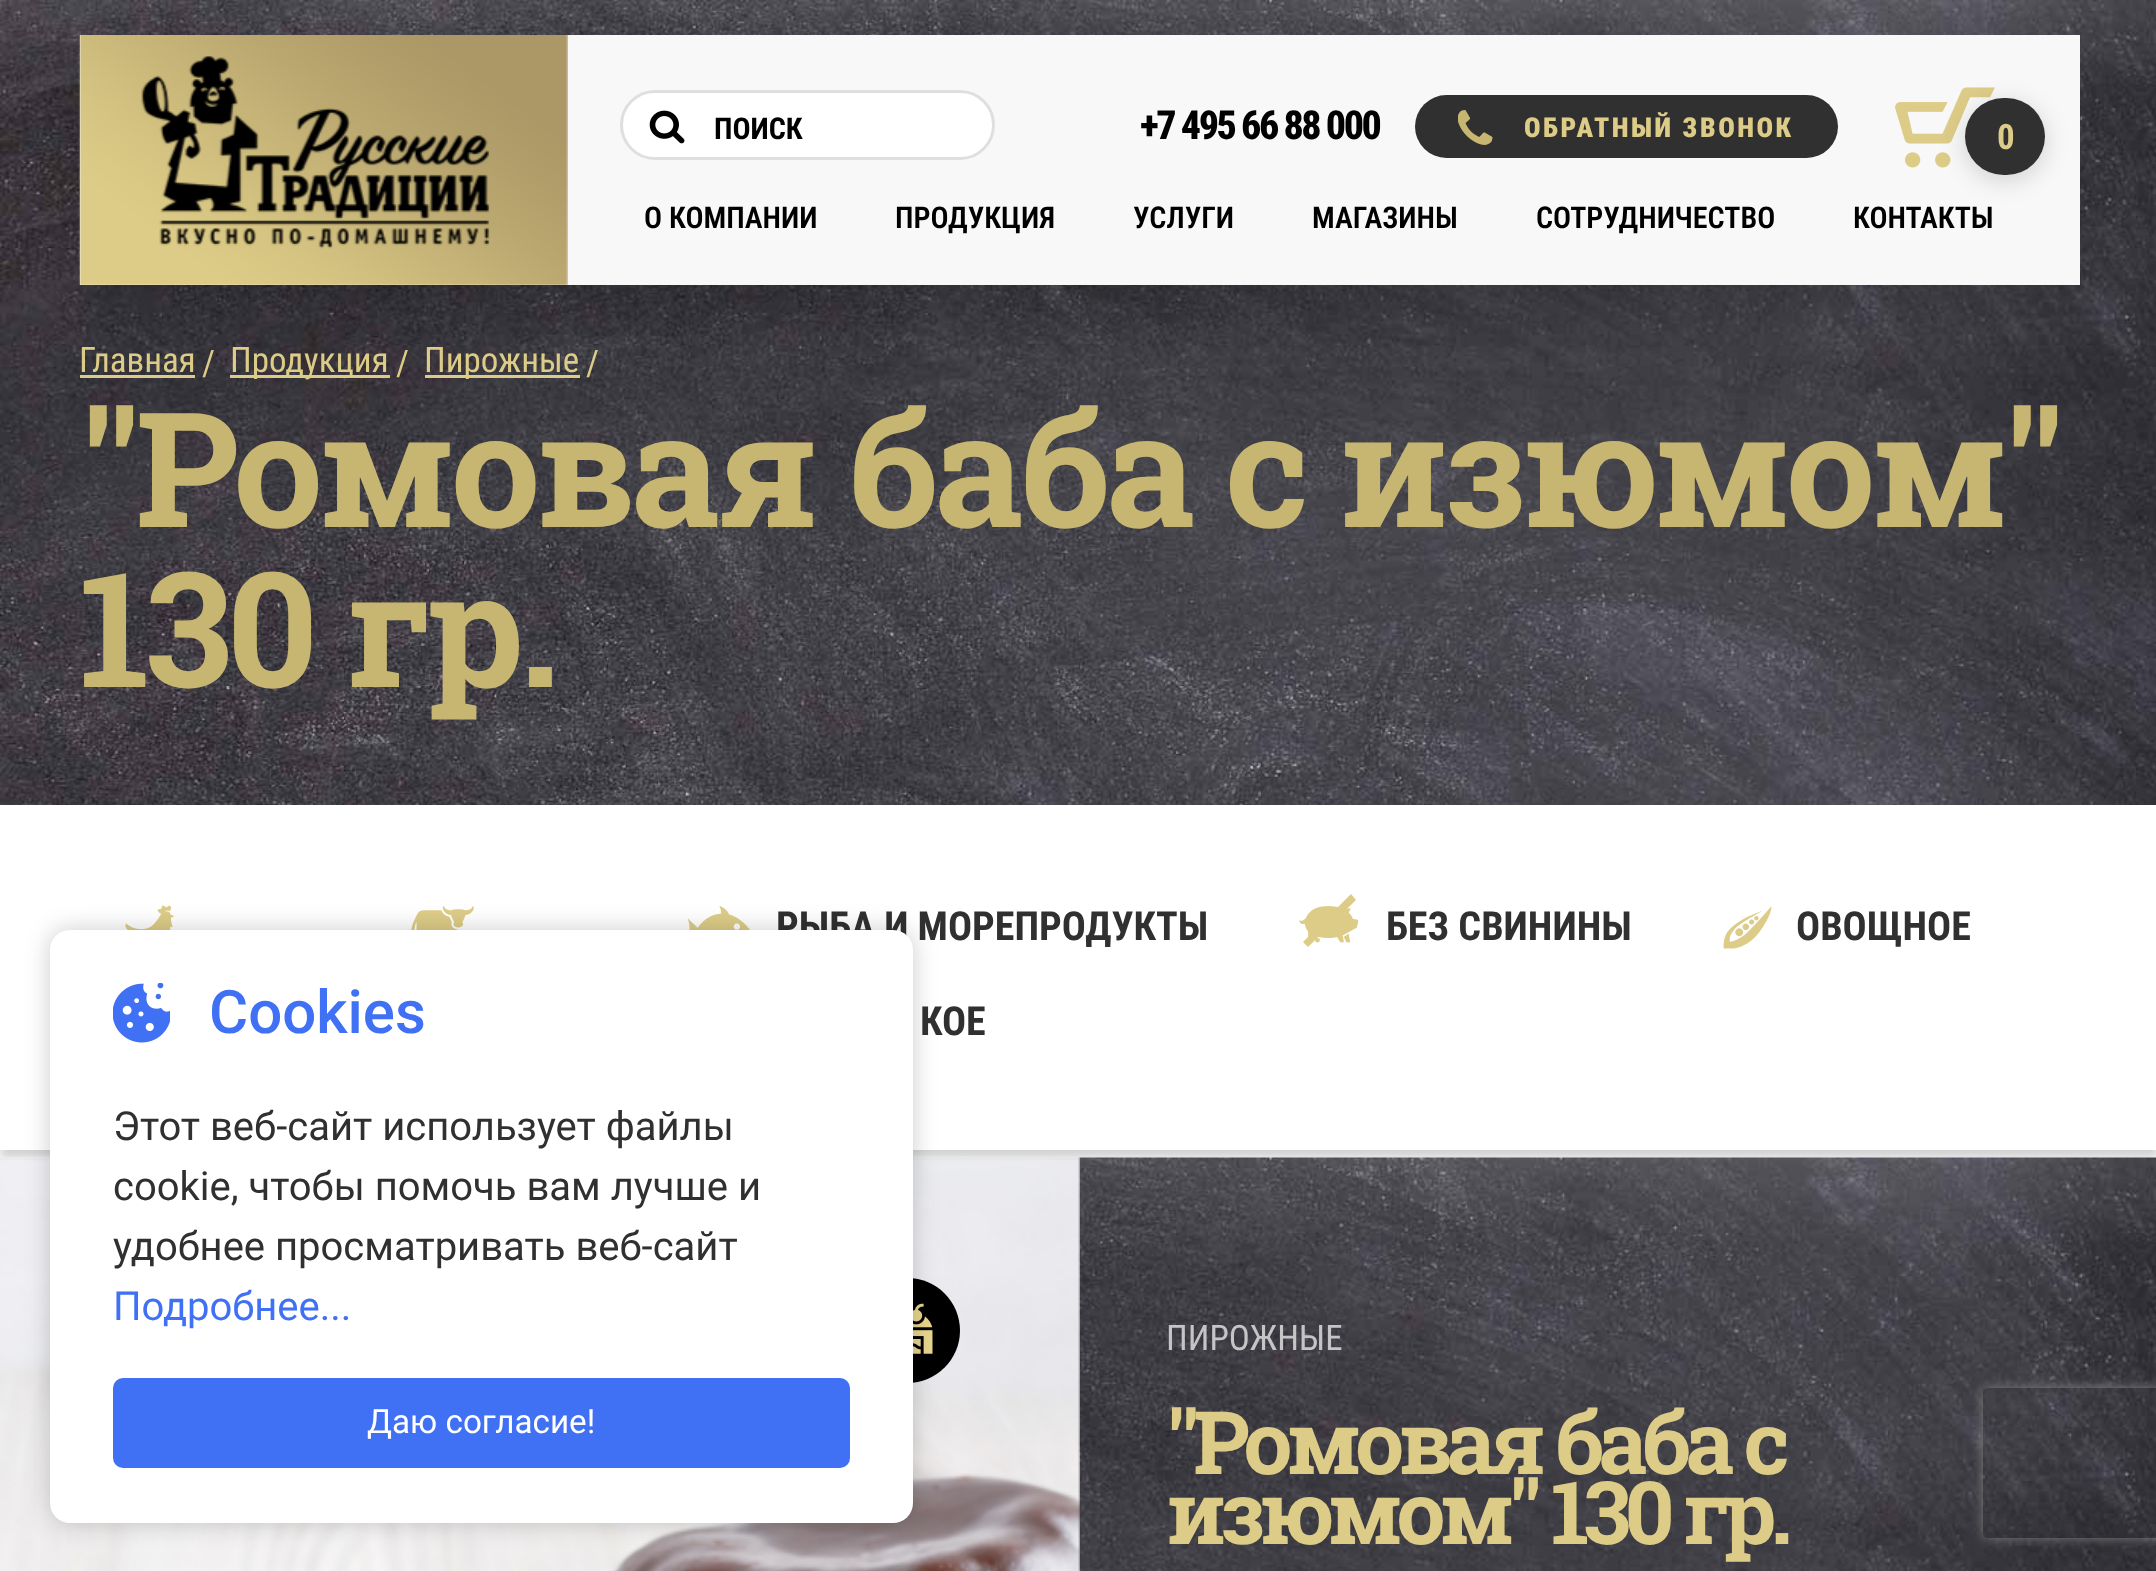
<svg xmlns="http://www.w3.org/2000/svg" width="2156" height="1571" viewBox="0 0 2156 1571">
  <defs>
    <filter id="blur1" x="-50%" y="-200%" width="200%" height="500%"><feGaussianBlur stdDeviation="25"/></filter>
    <filter id="blur2" x="-50%" y="-200%" width="200%" height="500%"><feGaussianBlur stdDeviation="12.5"/></filter>
    <clipPath id="clip1"><rect x="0" y="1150" width="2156" height="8"/></clipPath>
    <filter id="blur3" x="-50%" y="-200%" width="200%" height="500%"><feGaussianBlur stdDeviation="5"/></filter>
    <clipPath id="clip2"><path d="M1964 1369H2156V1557H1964ZM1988 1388H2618C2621 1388 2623 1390 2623 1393V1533C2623 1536 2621 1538 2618 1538H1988C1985 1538 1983 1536 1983 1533V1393C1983 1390 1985 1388 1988 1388Z" clip-rule="evenodd"/></clipPath>
    <filter id="blur4" x="-50%" y="-200%" width="200%" height="500%"><feGaussianBlur stdDeviation="6"/></filter>
  </defs>
  <rect width="100%" height="100%" fill="#ffffff"/>
  <image x="0" y="0" width="2156" height="805" href="img1.png"/>
  <rect x="80" y="375" width="115" height="3" fill="#ddcc87"/>
  <rect x="230" y="375" width="160" height="3" fill="#ddcc87"/>
  <rect x="425" y="375" width="155" height="3" fill="#ddcc87"/>
  <rect x="80" y="60" width="2000" height="250" fill="#000000" fill-opacity="0.16" filter="url(#blur1)"/>
  <rect x="80" y="35" width="2000" height="250" fill="#f8f8f8"/>
  <image x="78" y="35" width="490" height="250" href="img2.png"/>
  <rect x="621.5" y="91.5" width="372" height="67" rx="33.5" fill="#ffffff" stroke="#dfdfdf" stroke-width="3"/>
  <image x="649" y="110" width="36" height="34" href="img3.png"/>
  <text x="714" y="139" font-family="Roboto Condensed" font-size="30" font-weight="bold" fill="#000000">ПОИСК</text>
  <text x="1140" y="139" font-family="Roboto Condensed" font-size="40" font-weight="800" letter-spacing="-2.5" fill="#000000">+7 495 66 88 000</text>
  <rect x="1415" y="95" width="423" height="63" rx="31.5" fill="#303030"/>
  <image x="1458" y="110" width="35" height="35" href="img4.png"/>
  <text x="1524" y="137" font-family="Roboto Condensed" font-size="27.5" font-weight="900" letter-spacing="2.5" fill="#ddcc87">ОБРАТНЫЙ ЗВОНОК</text>
  <text x="644" y="228" font-family="Roboto Condensed" font-size="30" font-weight="600" fill="#000000">О КОМПАНИИ</text>
  <text x="895" y="228" font-family="Roboto Condensed" font-size="30" font-weight="600" fill="#000000">ПРОДУКЦИЯ</text>
  <text x="1133" y="228" font-family="Roboto Condensed" font-size="30" font-weight="600" fill="#000000">УСЛУГИ</text>
  <text x="1312" y="228" font-family="Roboto Condensed" font-size="30" font-weight="600" fill="#000000">МАГАЗИНЫ</text>
  <text x="1536" y="228" font-family="Roboto Condensed" font-size="30" font-weight="600" fill="#000000">СОТРУДНИЧЕСТВО</text>
  <text x="1853" y="228" font-family="Roboto Condensed" font-size="30" font-weight="600" fill="#000000">КОНТАКТЫ</text>
  <image x="1895" y="87" width="100" height="81" href="img5.png"/>
  <rect x="1965" y="103" width="80" height="77" rx="38.5" fill="#000000" fill-opacity="0.16" filter="url(#blur2)"/>
  <rect x="1965" y="98" width="80" height="77" rx="38.5" fill="#303030"/>
  <text x="1997" y="149" font-family="Roboto Condensed" font-size="35" font-weight="bold" fill="#ddcc87">0</text>
  <text x="79" y="372" font-family="Roboto Condensed" font-size="35" fill="#ddcc87">Главная</text>
  <text x="202" y="375" font-family="Roboto Condensed" font-size="35" fill="#ddcc87">/</text>
  <text x="230" y="372" font-family="Roboto Condensed" font-size="35" fill="#ddcc87">Продукция</text>
  <text x="396" y="375" font-family="Roboto Condensed" font-size="35" fill="#ddcc87">/</text>
  <text x="424" y="372" font-family="Roboto Condensed" font-size="35" fill="#ddcc87">Пирожные</text>
  <text x="586" y="375" font-family="Roboto Condensed" font-size="35" fill="#ddcc87">/</text>
  <text x="79" y="527" font-family="Roboto Slab" font-size="160" font-weight="bold" letter-spacing="-5" fill="#c7b672">"Ромовая баба с изюмом"</text>
  <text x="79" y="687" font-family="Roboto Slab" font-size="160" font-weight="bold" letter-spacing="-5" fill="#c7b672">130 гр.</text>
  <g clip-path="url(#clip1)">
    <rect x="0" y="813" width="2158" height="345" fill="#000000" fill-opacity="0.18" filter="url(#blur3)"/>
  </g>
  <image x="125" y="905" width="50" height="25" href="img6.png"/>
  <image x="411" y="906" width="63" height="24" href="img7.png"/>
  <image x="688" y="906" width="62" height="24" href="img8.png"/>
  <text x="776" y="940" font-family="Roboto Condensed" font-size="40" font-weight="bold" fill="#303030">РЫБА И МОРЕПРОДУКТЫ</text>
  <image x="1299" y="906" width="60" height="37" href="img9.png"/>
  <path d="M1303 942L1351 894L1356 900L1308 947Z" fill="#ddcc87"/>
  <text x="1386" y="940" font-family="Roboto Condensed" font-size="40" font-weight="bold" fill="#303030">БЕЗ СВИНИНЫ</text>
  <image x="1723" y="906" width="49" height="43" href="img10.png"/>
  <text x="1796" y="940" font-family="Roboto Condensed" font-size="40" font-weight="bold" fill="#303030">ОВОЩНОЕ</text>
  <text x="920" y="1035" font-family="Roboto Condensed" font-size="40" font-weight="bold" fill="#303030">КОЕ</text>
  <image x="0" y="1157" width="2156" height="414" href="img12.png"/>
  <image x="0" y="1157" width="1080" height="414" href="img13.png"/>
  <circle cx="907.5" cy="1330.5" r="52.5" fill="#000000"/>
  <image x="913" y="1303" width="20" height="51" href="img14.png"/>
  <rect x="50" y="930" width="863" height="593" rx="20" fill="#000000" fill-opacity="0.2" filter="url(#blur2)"/>
  <rect x="50" y="930" width="863" height="593" rx="20" fill="#ffffff"/>
  <image x="113" y="983" width="57" height="60" href="img11.png"/>
  <text x="209" y="1033" font-family="Roboto" font-size="60" font-weight="500" fill="#4070f4">Cookies</text>
  <text x="113" y="1140" font-family="Roboto" font-size="40" fill="#303030">Этот веб-сайт использует файлы</text>
  <text x="113" y="1200" font-family="Roboto" font-size="40" fill="#303030">cookie, чтобы помочь вам лучше и</text>
  <text x="113" y="1260" font-family="Roboto" font-size="40" fill="#303030">удобнее просматривать веб-сайт</text>
  <text x="113" y="1320" font-family="Roboto" font-size="40" fill="#4070f4">Подробнее...</text>
  <rect x="113" y="1378" width="737" height="90" rx="10" fill="#4070f4"/>
  <text x="367" y="1433" font-family="Roboto" font-size="33.25" fill="#ffffff">Даю согласие!</text>
  <text x="1166" y="1350" font-family="Roboto Condensed" font-size="35" fill="#c5c5c7">ПИРОЖНЫЕ</text>
  <text x="1166" y="1474" font-family="Roboto Slab" font-size="87.5" font-weight="bold" letter-spacing="-6.25" fill="#ddcc87">"Ромовая баба с</text>
  <text x="1166" y="1544" font-family="Roboto Slab" font-size="87.5" font-weight="bold" letter-spacing="-6.25" fill="#ddcc87">изюмом" 130 гр.</text>
  <g clip-path="url(#clip2)">
    <rect x="1983" y="1388" width="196" height="150" rx="5" fill="#808080" filter="url(#blur4)"/>
  </g>
</svg>
